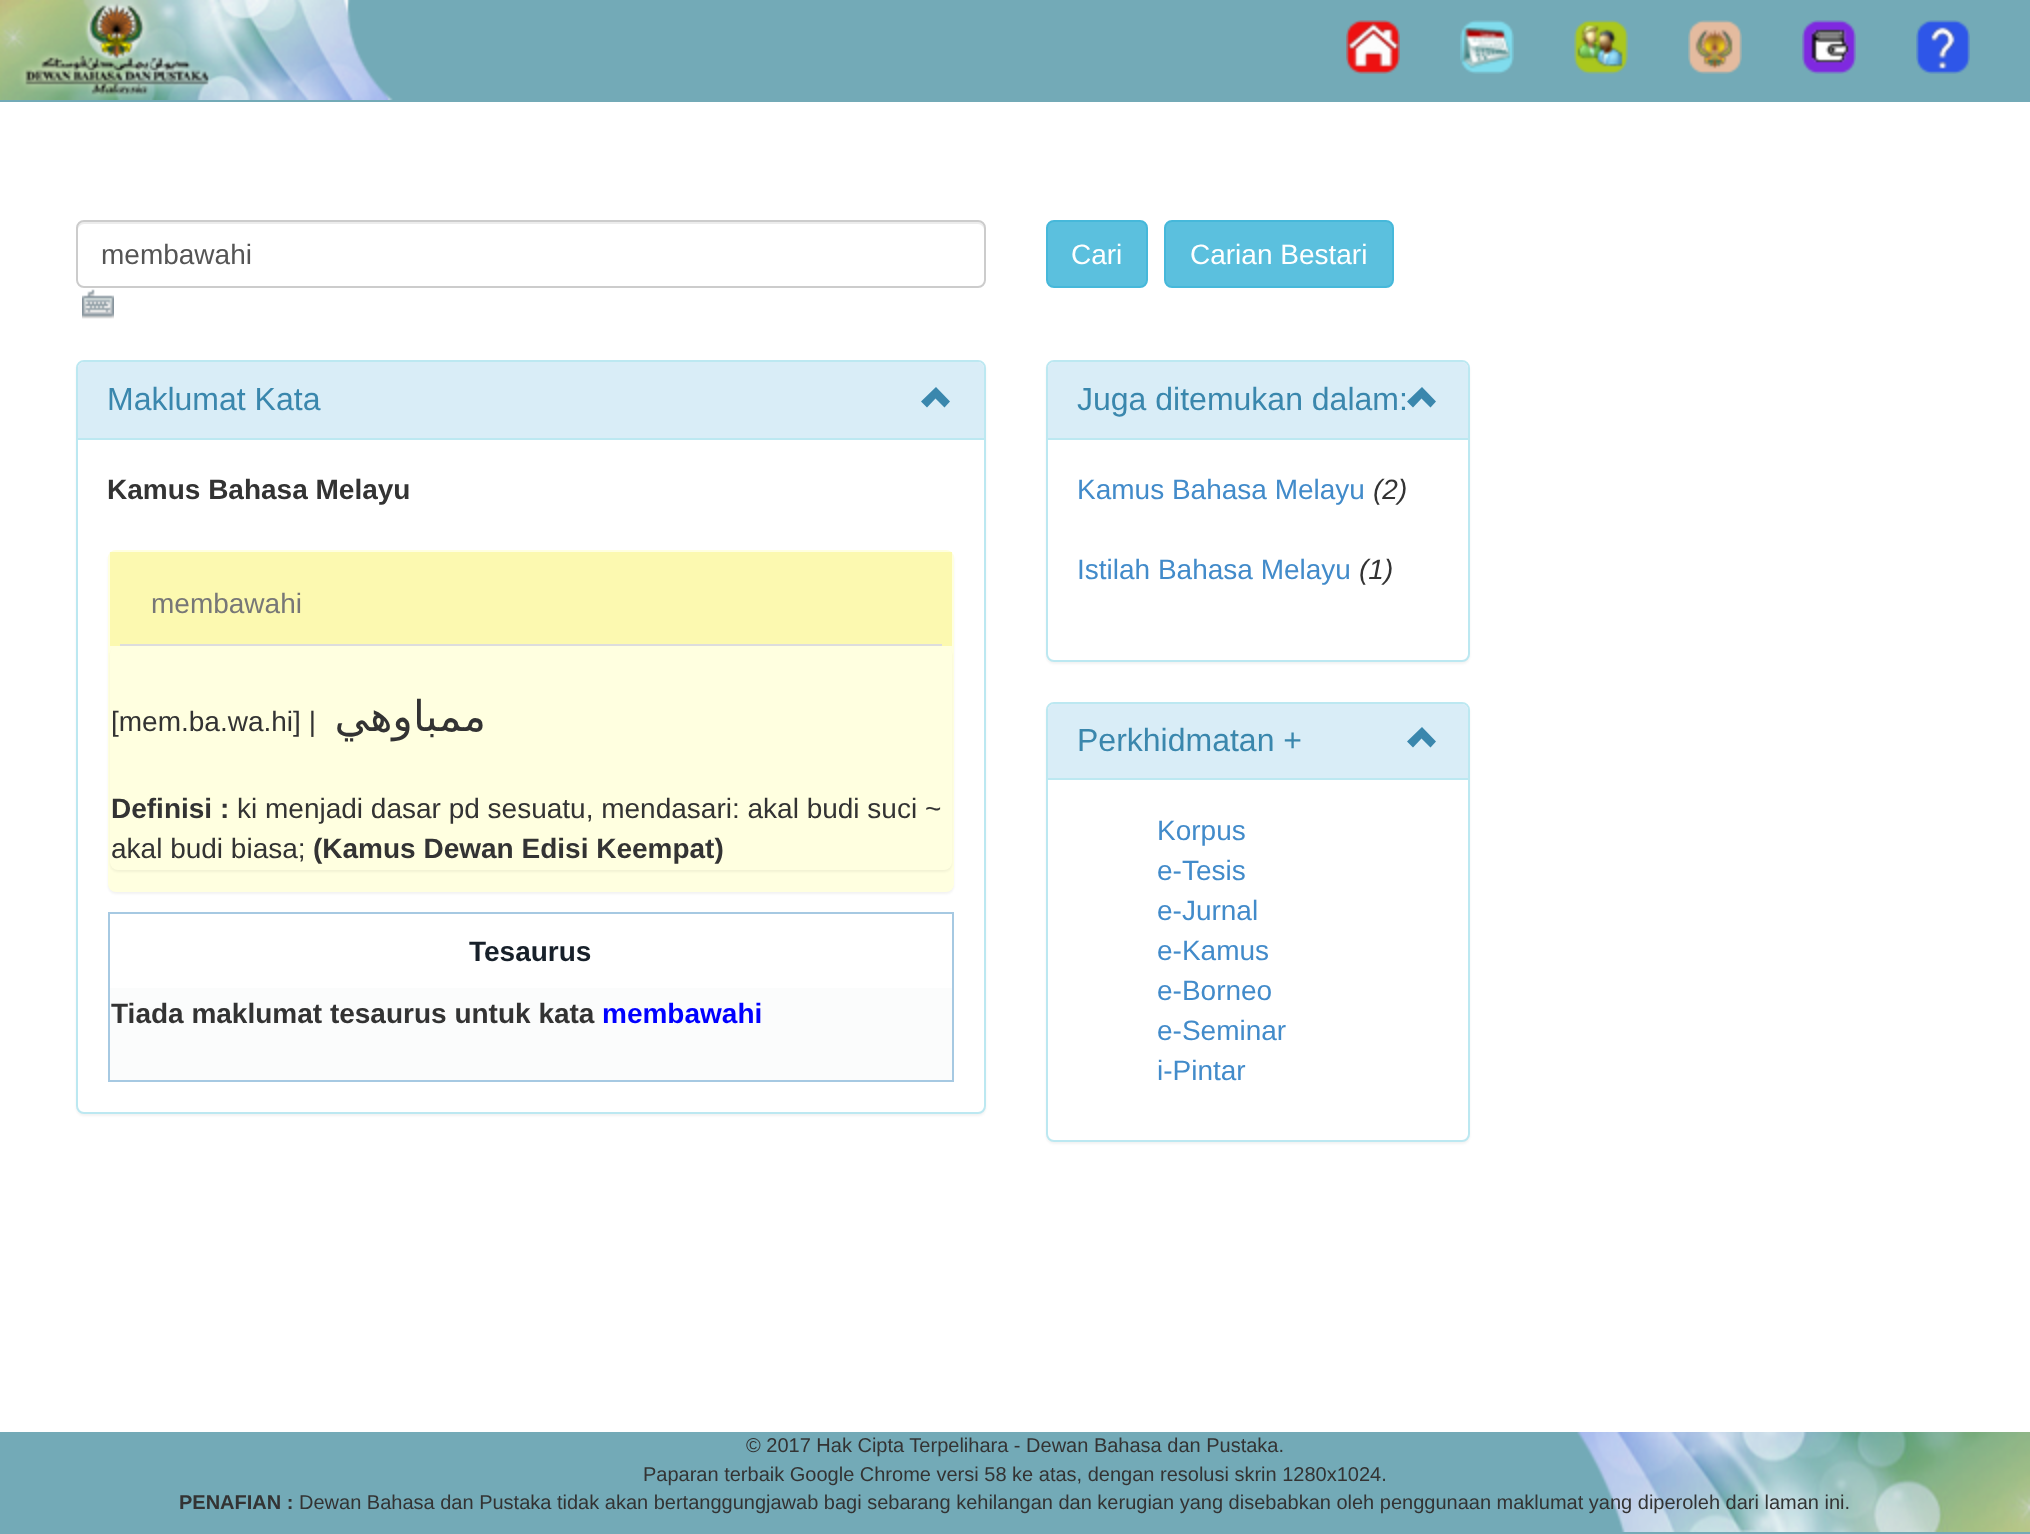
<svg xmlns="http://www.w3.org/2000/svg" width="2030" height="1534" viewBox="0 0 2030 1534">
  <defs>
    <filter id="blur1" x="-50%" y="-200%" width="200%" height="500%"><feGaussianBlur stdDeviation="1"/></filter>
  </defs>
  <rect width="100%" height="100%" fill="#ffffff"/>
  <rect x="0" y="0" width="2030" height="102" fill="#73aab7"/>
  <image x="0" y="0" width="393" height="100" href="img1.png"/>
  <image x="1346" y="20" width="54" height="54" href="img2.png"/>
  <image x="1460" y="20" width="54" height="54" href="img3.png"/>
  <image x="1574" y="20" width="54" height="54" href="img4.png"/>
  <image x="1688" y="20" width="54" height="54" href="img5.png"/>
  <image x="1802" y="20" width="54" height="54" href="img6.png"/>
  <image x="1916" y="20" width="54" height="54" href="img7.png"/>
  <path d="M84 224H978C981 224 984 227 984 230V228C984 225 981 222 978 222H84C81 222 78 225 78 228V230C78 227 81 224 84 224Z" fill="#ececec"/>
  <rect x="77" y="221" width="908" height="66" rx="7" fill="none" stroke="#cccccc" stroke-width="2"/>
  <text x="101" y="264" font-family="Liberation Sans" font-size="28" fill="#555555">membawahi</text>
  <image x="82" y="289" width="32" height="30" href="img8.png"/>
  <rect x="1047" y="221" width="100" height="66" rx="7" fill="#5bc0de" stroke="#46b8da" stroke-width="2"/>
  <text x="1071" y="264" font-family="Liberation Sans" font-size="28" fill="#ffffff">Cari</text>
  <rect x="1165" y="221" width="228" height="66" rx="7" fill="#5bc0de" stroke="#46b8da" stroke-width="2"/>
  <text x="1190" y="264" font-family="Liberation Sans" font-size="28" fill="#ffffff">Carian Bestari</text>
  <rect x="76" y="362" width="910" height="754" rx="8" fill="#000000" fill-opacity="0.05" filter="url(#blur1)"/>
  <rect x="77" y="361" width="908" height="752" rx="7" fill="#ffffff" stroke="#bce8f1" stroke-width="2"/>
  <path d="M84 362H978C981.5 362 984 364.5 984 368V440H78V368C78 364.5 80.5 362 84 362Z" fill="#d9edf7"/>
  <rect x="78" y="438" width="906" height="2" fill="#bce8f1"/>
  <text x="107" y="410" font-family="Liberation Sans" font-size="32" fill="#3a87ad">Maklumat Kata</text>
  <path d="M944.5 407.5L950 401.5L936 387L921 401.5L927 407.5L935.5 398.5Z" fill="#3a87ad"/>
  <text x="107" y="499" font-family="Liberation Sans" font-size="28" font-weight="bold" fill="#333333">Kamus Bahasa Melayu</text>
  <rect x="108" y="552" width="846" height="342" rx="8" fill="#000000" fill-opacity="0.05" filter="url(#blur1)"/>
  <rect x="108" y="550" width="846" height="342" rx="8" fill="#ffffe0"/>
  <rect x="110" y="552" width="842" height="94" fill="#fcf9b0"/>
  <rect x="120" y="644" width="822" height="2" fill="#dddddd"/>
  <text x="151" y="613" font-family="Liberation Sans" font-size="28" fill="#777777">membawahi</text>
  <rect x="110" y="648" width="842" height="224" rx="8" fill="#000000" fill-opacity="0.05" filter="url(#blur1)"/>
  <rect x="110" y="646" width="842" height="224" rx="8" fill="#ffffe0"/>
  <text x="111" y="731" font-family="Liberation Sans" font-size="28" fill="#333333">[mem.ba.wa.hi] |</text>
  <text x="486" y="731" font-family="DejaVu Sans" font-size="42.5" direction="rtl" fill="#333333">ممباوهي</text>
  <text x="111" y="818" font-family="Liberation Sans" font-size="28" font-weight="bold" fill="#333333">Definisi :</text>
  <text x="237" y="818" font-family="Liberation Sans" font-size="28" fill="#333333">ki menjadi dasar pd sesuatu, mendasari: akal budi suci ~</text>
  <text x="111" y="858" font-family="Liberation Sans" font-size="28" fill="#333333">akal budi biasa;</text>
  <text x="313" y="858" font-family="Liberation Sans" font-size="28" font-weight="bold" fill="#333333">(Kamus Dewan Edisi Keempat)</text>
  <rect x="108" y="912" width="846" height="2" fill="#a6c9e2"/>
  <rect x="952" y="912" width="2" height="170" fill="#a6c9e2"/>
  <rect x="108" y="1080" width="846" height="2" fill="#a6c9e2"/>
  <rect x="108" y="988" width="844" height="4" fill="#fbfcfc"/>
  <rect x="108" y="912" width="2" height="170" fill="#a6c9e2"/>
  <text x="469" y="961" font-family="Liberation Sans" font-size="28" font-weight="bold" fill="#17202a">Tesaurus</text>
  <rect x="110" y="992" width="842" height="88" fill="#fbfcfc"/>
  <text x="111" y="1023" font-family="Liberation Sans" font-size="28" font-weight="bold" fill="#333333">Tiada maklumat tesaurus untuk kata</text>
  <text x="602" y="1023" font-family="Liberation Sans" font-size="28" font-weight="bold" fill="#0000ff">membawahi</text>
  <rect x="1046" y="362" width="424" height="302" rx="8" fill="#000000" fill-opacity="0.05" filter="url(#blur1)"/>
  <rect x="1047" y="361" width="422" height="300" rx="7" fill="#ffffff" stroke="#bce8f1" stroke-width="2"/>
  <path d="M1054 362H1462C1465.5 362 1468 364.5 1468 368V440H1048V368C1048 364.5 1050.5 362 1054 362Z" fill="#d9edf7"/>
  <rect x="1048" y="438" width="420" height="2" fill="#bce8f1"/>
  <text x="1077" y="410" font-family="Liberation Sans" font-size="32" fill="#3a87ad">Juga ditemukan dalam:</text>
  <path d="M1430.5 407.5L1436 401.5L1422 387L1407 401.5L1413 407.5L1421.5 398.5Z" fill="#3a87ad"/>
  <text x="1077" y="499" font-family="Liberation Sans" font-size="28" fill="#428bca">Kamus Bahasa Melayu</text>
  <text x="1373" y="499" font-family="Liberation Sans" font-size="28" font-style="italic" fill="#333333">(2)</text>
  <text x="1077" y="579" font-family="Liberation Sans" font-size="28" fill="#428bca">Istilah Bahasa Melayu</text>
  <text x="1359" y="579" font-family="Liberation Sans" font-size="28" font-style="italic" fill="#333333">(1)</text>
  <rect x="1046" y="704" width="424" height="440" rx="8" fill="#000000" fill-opacity="0.05" filter="url(#blur1)"/>
  <rect x="1047" y="703" width="422" height="438" rx="7" fill="#ffffff" stroke="#bce8f1" stroke-width="2"/>
  <path d="M1054 704H1462C1465.5 704 1468 706.5 1468 710V780H1048V710C1048 706.5 1050.5 704 1054 704Z" fill="#d9edf7"/>
  <rect x="1048" y="778" width="420" height="2" fill="#bce8f1"/>
  <text x="1077" y="751" font-family="Liberation Sans" font-size="32" fill="#3a87ad">Perkhidmatan +</text>
  <path d="M1430.5 747.5L1436 741.5L1422 727L1407 741.5L1413 747.5L1421.5 738.5Z" fill="#3a87ad"/>
  <text x="1157" y="840" font-family="Liberation Sans" font-size="28" fill="#428bca">Korpus</text>
  <text x="1157" y="880" font-family="Liberation Sans" font-size="28" fill="#428bca">e-Tesis</text>
  <text x="1157" y="920" font-family="Liberation Sans" font-size="28" fill="#428bca">e-Jurnal</text>
  <text x="1157" y="960" font-family="Liberation Sans" font-size="28" fill="#428bca">e-Kamus</text>
  <text x="1157" y="1000" font-family="Liberation Sans" font-size="28" fill="#428bca">e-Borneo</text>
  <text x="1157" y="1040" font-family="Liberation Sans" font-size="28" fill="#428bca">e-Seminar</text>
  <text x="1157" y="1080" font-family="Liberation Sans" font-size="28" fill="#428bca">i-Pintar</text>
  <rect x="0" y="1432" width="2030" height="102" fill="#73aab7"/>
  <image x="1577" y="1432" width="453" height="100" href="img9.png"/>
  <text x="746" y="1452" font-family="Liberation Sans" font-size="20" fill="#333333">© 2017 Hak Cipta Terpelihara - Dewan Bahasa dan Pustaka.</text>
  <text x="643" y="1481" font-family="Liberation Sans" font-size="20" fill="#333333">Paparan terbaik Google Chrome versi 58 ke atas, dengan resolusi skrin 1280x1024.</text>
  <text x="179" y="1509" font-family="Liberation Sans" font-size="20" font-weight="bold" fill="#333333">PENAFIAN :</text>
  <text x="299" y="1509" font-family="Liberation Sans" font-size="20" fill="#333333">Dewan Bahasa dan Pustaka tidak akan bertanggungjawab bagi sebarang kehilangan dan kerugian yang disebabkan oleh penggunaan maklumat yang diperoleh dari laman ini.</text>
</svg>
